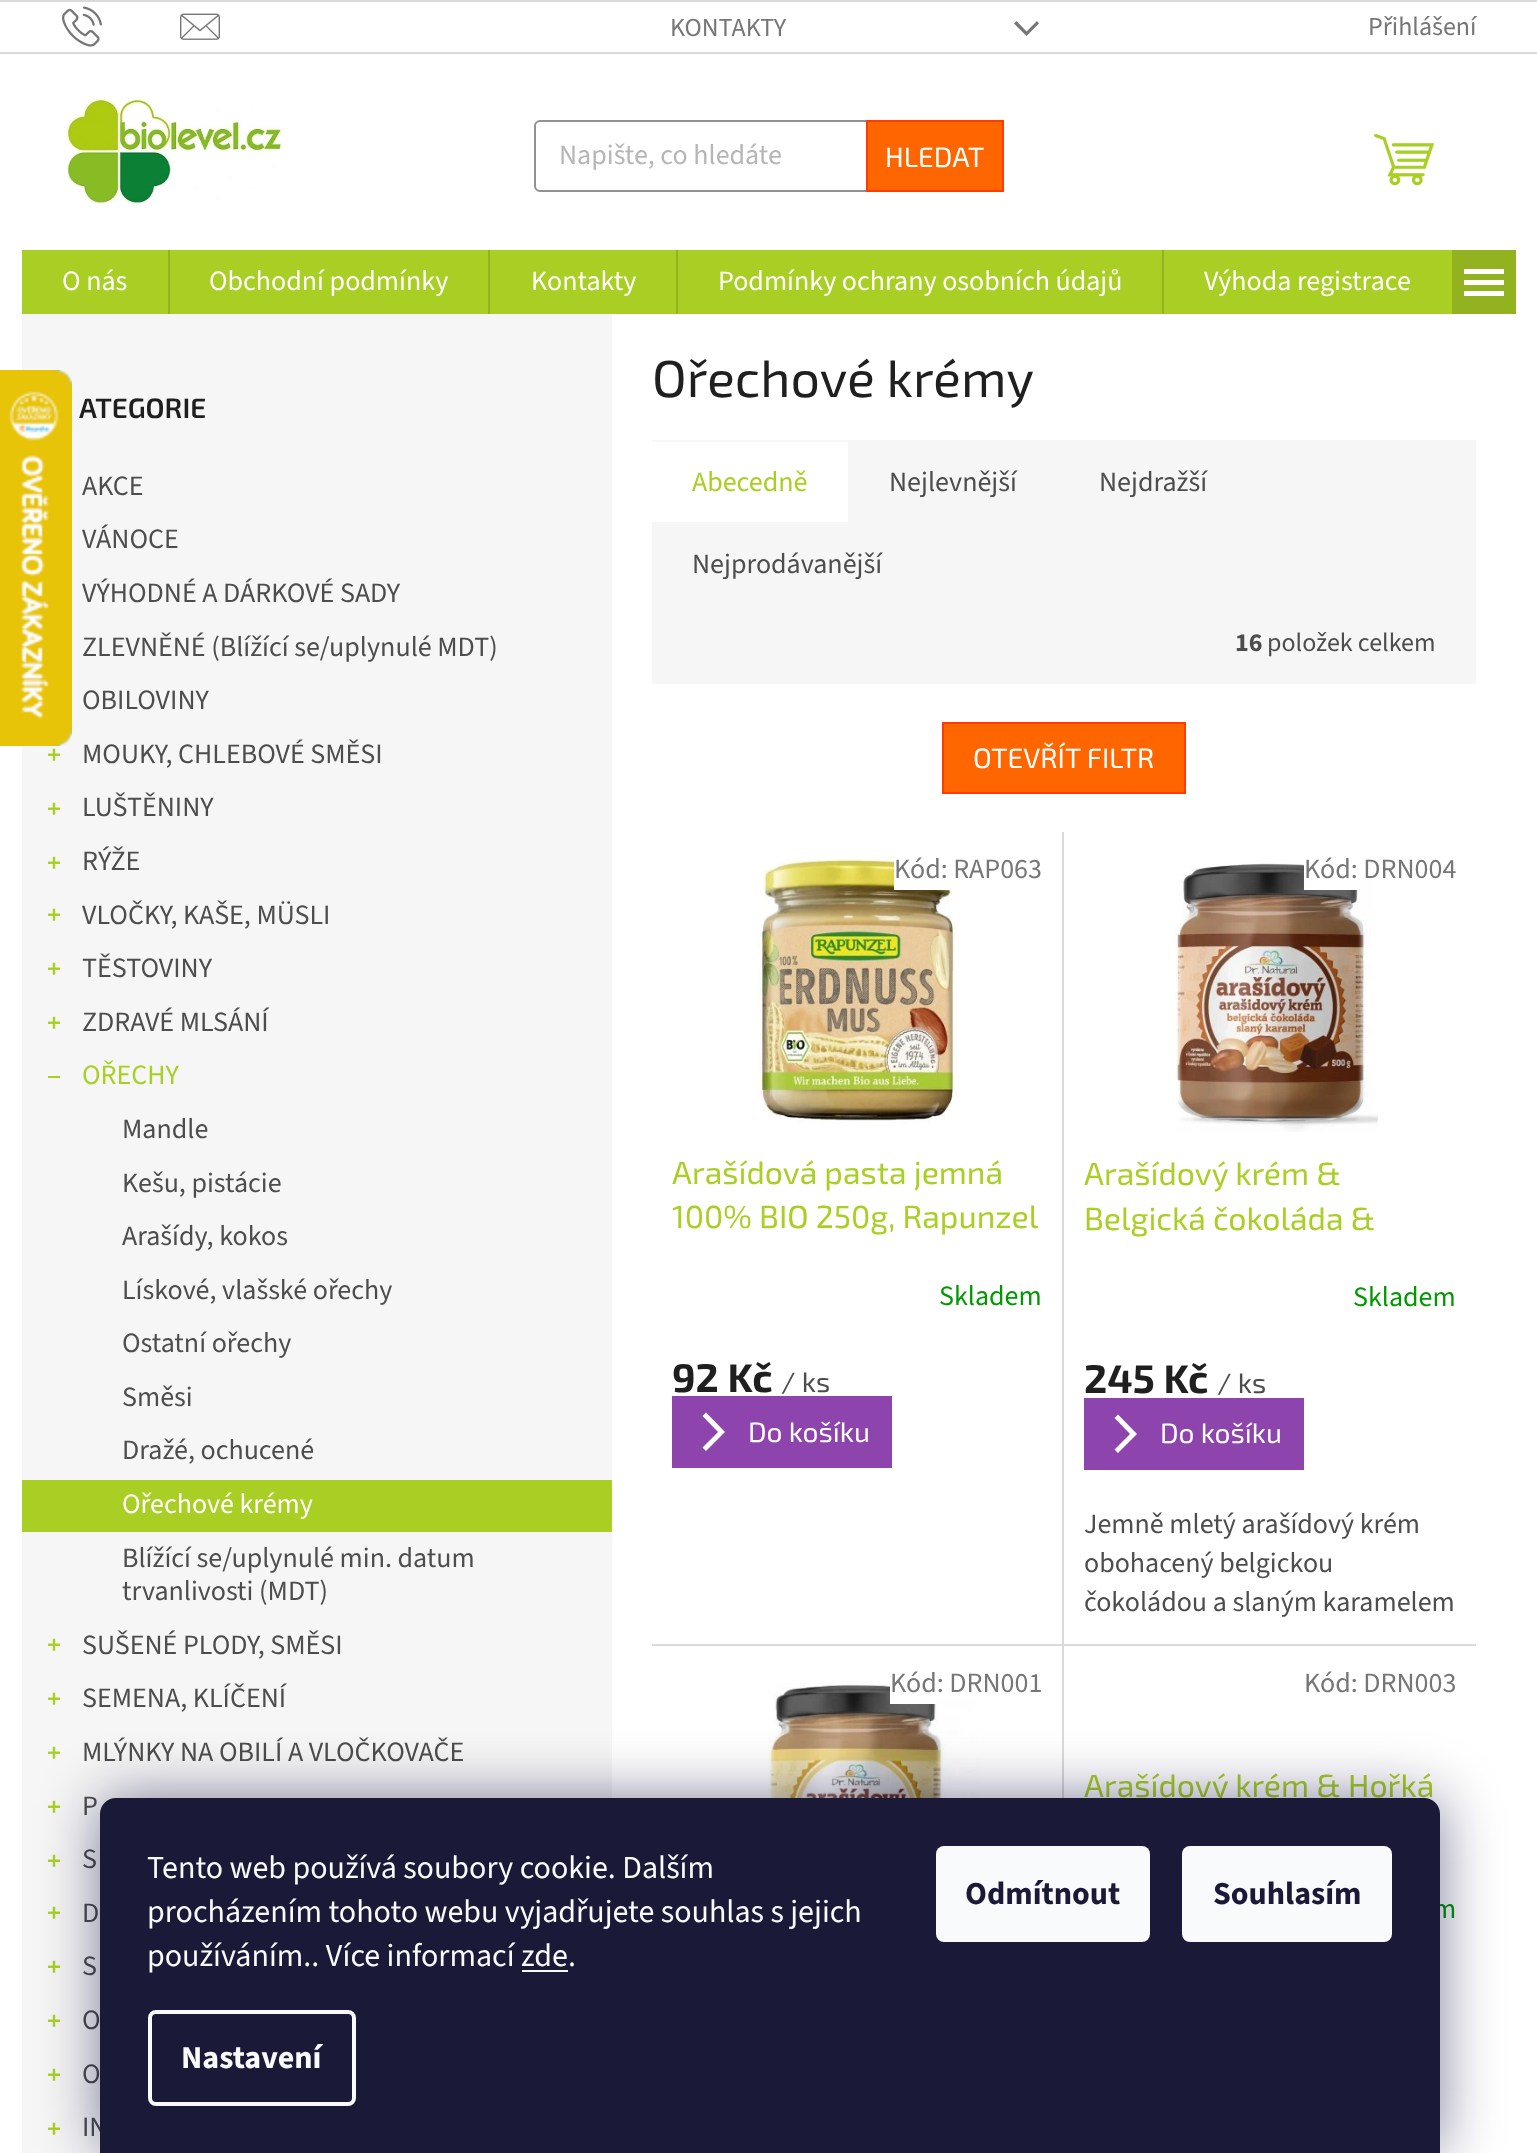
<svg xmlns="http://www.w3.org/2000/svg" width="1537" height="2153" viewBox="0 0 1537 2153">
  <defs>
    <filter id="blur1" x="-50%" y="-200%" width="200%" height="500%"><feGaussianBlur stdDeviation="30"/></filter>
  </defs>
  <rect width="100%" height="100%" fill="#ffffff"/>
  <rect x="22" y="314" width="590" height="1839" fill="#f6f6f6"/>
  <image x="0" y="370" width="72" height="376" href="img1.png"/>
  <rect x="0" y="0" width="1537" height="2" fill="#dadada"/>
  <rect x="0" y="52" width="1537" height="2" fill="#dadada"/>
  <image x="62" y="6" width="40" height="41" href="img2.png"/>
  <image x="180" y="13" width="40" height="27" href="img3.png"/>
  <text x="670" y="36" font-family="'Source Sans 3'" font-size="26" fill="#767676">KONTAKTY</text>
  <path d="M1014 23.5L1016.5 21L1026.5 31.5L1037 21L1039 23.5L1026.5 36Z" fill="#767676"/>
  <text x="1368" y="35" font-family="'Source Sans 3'" font-size="26" fill="#767676">Přihlášení</text>
  <image x="66" y="97" width="216" height="108" href="img4.png"/>
  <rect x="535" y="121" width="468" height="70" rx="5" fill="none" stroke="#919191" stroke-width="2"/>
  <text x="559" y="164" font-family="'Source Sans 3'" font-size="28" fill="#b6b6b6">Napište, co hledáte</text>
  <rect x="867" y="121" width="136" height="70" fill="#ff6600" stroke="#ff3c00" stroke-width="2"/>
  <text x="885" y="167" font-family="'Exo 2'" font-size="28" fill="#ffffff">HLEDAT</text>
  <image x="1374" y="133" width="60" height="53" href="img5.png"/>
  <rect x="22" y="250" width="1430" height="64" fill="#aacf24"/>
  <text x="62" y="290" font-family="'Source Sans 3'" font-size="28" fill="#ffffff">O nás</text>
  <rect x="168" y="250" width="2" height="64" fill="#92b21f"/>
  <text x="209" y="290" font-family="'Source Sans 3'" font-size="28" fill="#ffffff">Obchodní podmínky</text>
  <rect x="488" y="250" width="2" height="64" fill="#92b21f"/>
  <text x="531" y="290" font-family="'Source Sans 3'" font-size="28" fill="#ffffff">Kontakty</text>
  <rect x="676" y="250" width="2" height="64" fill="#92b21f"/>
  <text x="718" y="290" font-family="'Source Sans 3'" font-size="28" fill="#ffffff">Podmínky ochrany osobních údajů</text>
  <rect x="1162" y="250" width="2" height="64" fill="#92b21f"/>
  <text x="1204" y="290" font-family="'Source Sans 3'" font-size="28" fill="#ffffff">Výhoda registrace</text>
  <rect x="1452" y="250" width="64" height="64" fill="#92b21f"/>
  <path d="M1464 296H1504V291H1464ZM1464 285H1504V280H1464ZM1464 269V274H1504V269Z" fill="#ffffff"/>
  <text x="79" y="418" font-family="'Exo 2'" font-size="28" font-weight="600" fill="#1f1f1f">ATEGORIE</text>
  <text x="82" y="495" font-family="'Source Sans 3'" font-size="28" fill="#4d4d4d">AKCE</text>
  <text x="82" y="548" font-family="'Source Sans 3'" font-size="28" fill="#4d4d4d">VÁNOCE</text>
  <text x="82" y="602" font-family="'Source Sans 3'" font-size="28" fill="#4d4d4d">VÝHODNÉ A DÁRKOVÉ SADY</text>
  <text x="82" y="656" font-family="'Source Sans 3'" font-size="28" fill="#4d4d4d">ZLEVNĚNÉ (Blížící se/uplynulé MDT)</text>
  <text x="82" y="709" font-family="'Source Sans 3'" font-size="28" fill="#4d4d4d">OBILOVINY</text>
  <image x="48" y="748" width="12" height="13" href="img6.png"/>
  <text x="82" y="763" font-family="'Source Sans 3'" font-size="28" fill="#4d4d4d">MOUKY, CHLEBOVÉ SMĚSI</text>
  <image x="48" y="802" width="12" height="13" href="img6.png"/>
  <text x="82" y="816" font-family="'Source Sans 3'" font-size="28" fill="#4d4d4d">LUŠTĚNINY</text>
  <image x="48" y="856" width="12" height="13" href="img6.png"/>
  <text x="82" y="870" font-family="'Source Sans 3'" font-size="28" fill="#4d4d4d">RÝŽE</text>
  <image x="48" y="908" width="12" height="13" href="img6.png"/>
  <text x="82" y="924" font-family="'Source Sans 3'" font-size="28" fill="#4d4d4d">VLOČKY, KAŠE, MÜSLI</text>
  <image x="48" y="962" width="12" height="13" href="img6.png"/>
  <text x="82" y="977" font-family="'Source Sans 3'" font-size="28" fill="#4d4d4d">TĚSTOVINY</text>
  <image x="48" y="1016" width="12" height="13" href="img6.png"/>
  <text x="82" y="1031" font-family="'Source Sans 3'" font-size="28" fill="#4d4d4d">ZDRAVÉ MLSÁNÍ</text>
  <rect x="48" y="1076" width="12" height="2" fill="#aacf24"/>
  <text x="82" y="1084" font-family="'Source Sans 3'" font-size="28" fill="#aacf24">OŘECHY</text>
  <text x="122" y="1138" font-family="'Source Sans 3'" font-size="28" fill="#4d4d4d">Mandle</text>
  <text x="122" y="1192" font-family="'Source Sans 3'" font-size="28" fill="#4d4d4d">Kešu, pistácie</text>
  <text x="122" y="1245" font-family="'Source Sans 3'" font-size="28" fill="#4d4d4d">Arašídy, kokos</text>
  <text x="122" y="1299" font-family="'Source Sans 3'" font-size="28" fill="#4d4d4d">Lískové, vlašské ořechy</text>
  <text x="122" y="1352" font-family="'Source Sans 3'" font-size="28" fill="#4d4d4d">Ostatní ořechy</text>
  <text x="122" y="1406" font-family="'Source Sans 3'" font-size="28" fill="#4d4d4d">Směsi</text>
  <text x="122" y="1459" font-family="'Source Sans 3'" font-size="28" fill="#4d4d4d">Dražé, ochucené</text>
  <rect x="22" y="1480" width="590" height="52" fill="#aacf24"/>
  <text x="122" y="1513" font-family="'Source Sans 3'" font-size="28" fill="#ffffff">Ořechové krémy</text>
  <text x="122" y="1567" font-family="'Source Sans 3'" font-size="28" fill="#4d4d4d">Blížící se/uplynulé min. datum</text>
  <text x="122" y="1600" font-family="'Source Sans 3'" font-size="28" fill="#4d4d4d">trvanlivosti (MDT)</text>
  <image x="48" y="1638" width="12" height="13" href="img6.png"/>
  <text x="82" y="1654" font-family="'Source Sans 3'" font-size="28" fill="#4d4d4d">SUŠENÉ PLODY, SMĚSI</text>
  <image x="48" y="1692" width="12" height="13" href="img6.png"/>
  <text x="82" y="1707" font-family="'Source Sans 3'" font-size="28" fill="#4d4d4d">SEMENA, KLÍČENÍ</text>
  <image x="48" y="1746" width="12" height="13" href="img6.png"/>
  <text x="82" y="1761" font-family="'Source Sans 3'" font-size="28" fill="#4d4d4d">MLÝNKY NA OBILÍ A VLOČKOVAČE</text>
  <image x="48" y="1800" width="12" height="13" href="img6.png"/>
  <text x="82" y="1815" font-family="'Source Sans 3'" font-size="28" fill="#4d4d4d">P</text>
  <image x="48" y="1854" width="12" height="13" href="img6.png"/>
  <text x="82" y="1868" font-family="'Source Sans 3'" font-size="28" fill="#4d4d4d">S</text>
  <image x="48" y="1906" width="12" height="13" href="img6.png"/>
  <text x="82" y="1922" font-family="'Source Sans 3'" font-size="28" fill="#4d4d4d">D</text>
  <image x="48" y="1960" width="12" height="13" href="img6.png"/>
  <text x="82" y="1975" font-family="'Source Sans 3'" font-size="28" fill="#4d4d4d">S</text>
  <image x="48" y="2014" width="12" height="13" href="img6.png"/>
  <text x="82" y="2029" font-family="'Source Sans 3'" font-size="28" fill="#4d4d4d">O</text>
  <image x="48" y="2068" width="12" height="13" href="img6.png"/>
  <text x="82" y="2083" font-family="'Source Sans 3'" font-size="28" fill="#4d4d4d">O</text>
  <image x="48" y="2122" width="12" height="13" href="img6.png"/>
  <text x="82" y="2136" font-family="'Source Sans 3'" font-size="28" fill="#4d4d4d">IN</text>
  <text x="652" y="397" font-family="'Exo 2'" font-size="52" fill="#1f1f1f">Ořechové krémy</text>
  <rect x="652" y="440" width="824" height="244" fill="#f6f6f6"/>
  <rect x="652" y="442" width="196" height="80" fill="#ffffff"/>
  <text x="692" y="491" font-family="'Source Sans 3'" font-size="28" fill="#aacf24">Abecedně</text>
  <text x="889" y="491" font-family="'Source Sans 3'" font-size="28" fill="#4d4d4d">Nejlevnější</text>
  <text x="1099" y="491" font-family="'Source Sans 3'" font-size="28" fill="#4d4d4d">Nejdražší</text>
  <text x="692" y="573" font-family="'Source Sans 3'" font-size="28" fill="#4d4d4d">Nejprodávanější</text>
  <text x="1235" y="651" font-family="'Source Sans 3'" font-size="26" font-weight="bold" fill="#4d4d4d">16</text>
  <text x="1267" y="651" font-family="'Source Sans 3'" font-size="26" fill="#4d4d4d">položek celkem</text>
  <rect x="943" y="723" width="242" height="70" fill="#ff6600" stroke="#ff3c00" stroke-width="2"/>
  <text x="973" y="768" font-family="'Exo 2'" font-size="28" fill="#ffffff">OTEVŘÍT FILTR</text>
  <rect x="1062" y="832" width="2" height="812" fill="#dadada"/>
  <image x="757" y="855" width="204" height="269" href="img7.png"/>
  <rect x="894" y="855" width="59" height="35" fill="#ffffff"/>
  <text x="894" y="878" font-family="'Source Sans 3'" font-size="28" fill="#767676">Kód: RAP063</text>
  <text x="672" y="1184" font-family="'Exo 2'" font-size="32" fill="#aacf24">Arašídová pasta jemná</text>
  <text x="672" y="1228" font-family="'Exo 2'" font-size="32" fill="#aacf24">100% BIO 250g, Rapunzel</text>
  <text x="939" y="1305" font-family="'Source Sans 3'" font-size="28" fill="#009901">Skladem</text>
  <text x="672" y="1392" font-family="'Exo 2'" font-size="40" font-weight="bold" fill="#1f1f1f">92 Kč</text>
  <text x="781" y="1392" font-family="'Exo 2'" font-size="28" fill="#4d4d4d">/ ks</text>
  <rect x="672" y="1396" width="220" height="72" fill="#8e44ad"/>
  <path d="M706 1451L702.5 1447.5L718 1432L702.5 1416L706 1412.5L725 1432Z" fill="#ffffff"/>
  <text x="748" y="1442" font-family="'Exo 2'" font-size="28" fill="#ffffff">Do košíku</text>
  <image x="1175" y="863" width="203" height="269" href="img8.png"/>
  <rect x="1304" y="864" width="55" height="26" fill="#ffffff"/>
  <text x="1304" y="878" font-family="'Source Sans 3'" font-size="28" fill="#767676">Kód: DRN004</text>
  <text x="1084" y="1185" font-family="'Exo 2'" font-size="32" fill="#aacf24">Arašídový krém &amp;</text>
  <text x="1084" y="1230" font-family="'Exo 2'" font-size="32" fill="#aacf24">Belgická čokoláda &amp;</text>
  <text x="1353" y="1306" font-family="'Source Sans 3'" font-size="28" fill="#009901">Skladem</text>
  <text x="1084" y="1393" font-family="'Exo 2'" font-size="40" font-weight="bold" fill="#1f1f1f">245 Kč</text>
  <text x="1217" y="1393" font-family="'Exo 2'" font-size="28" fill="#4d4d4d">/ ks</text>
  <rect x="1084" y="1398" width="220" height="72" fill="#8e44ad"/>
  <path d="M1118 1453L1114.5 1449.5L1130 1434L1114.5 1418L1118 1414.5L1137 1434Z" fill="#ffffff"/>
  <text x="1160" y="1443" font-family="'Exo 2'" font-size="28" fill="#ffffff">Do košíku</text>
  <text x="1084" y="1533" font-family="'Source Sans 3'" font-size="28" fill="#4d4d4d">Jemně mletý arašídový krém</text>
  <text x="1084" y="1572" font-family="'Source Sans 3'" font-size="28" fill="#4d4d4d">obohacený belgickou</text>
  <text x="1084" y="1611" font-family="'Source Sans 3'" font-size="28" fill="#4d4d4d">čokoládou a slaným karamelem</text>
  <rect x="652" y="1644" width="824" height="2" fill="#dadada"/>
  <rect x="1062" y="1644" width="2" height="154" fill="#dadada"/>
  <image x="768" y="1681" width="212" height="117" href="img9.png"/>
  <rect x="890" y="1683" width="48" height="21" fill="#ffffff"/>
  <text x="890" y="1692" font-family="'Source Sans 3'" font-size="28" fill="#767676">Kód: DRN001</text>
  <text x="1304" y="1692" font-family="'Source Sans 3'" font-size="28" fill="#767676">Kód: DRN003</text>
  <text x="1084" y="1797" font-family="'Exo 2'" font-size="32" fill="#aacf24">Arašídový krém &amp; Hořká</text>
  <text x="1433" y="1918" font-family="'Source Sans 3'" font-size="28" fill="#009901">m</text>
  <rect x="100" y="1798" width="1340" height="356" rx="16" fill="#1b1939" fill-opacity="0.5" filter="url(#blur1)"/>
  <path d="M116 1798H1424C1433 1798 1440 1805 1440 1814V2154H100V1814C100 1805 107 1798 116 1798Z" fill="#1a1937"/>
  <text x="147" y="1878" font-family="'Source Sans 3'" font-size="32" fill="#f8fafb">Tento web používá soubory cookie. Dalším</text>
  <text x="147" y="1922" font-family="'Source Sans 3'" font-size="32" fill="#f8fafb">procházením tohoto webu vyjadřujete souhlas s jejich</text>
  <text x="147" y="1966" font-family="'Source Sans 3'" font-size="32" fill="#f8fafb">používáním.. Více informací zde.</text>
  <rect x="522" y="1970" width="46" height="2" fill="#f8fafb"/>
  <rect x="150" y="2012" width="204" height="92" rx="6" fill="none" stroke="#f8fafb" stroke-width="4"/>
  <text x="181" y="2068" font-family="'Source Sans 3'" font-size="32" font-weight="bold" fill="#f8fafb">Nastavení</text>
  <rect x="936" y="1846" width="214" height="96" rx="8" fill="#f8fafb"/>
  <text x="965" y="1904" font-family="'Source Sans 3'" font-size="32" font-weight="bold" fill="#1a1937">Odmítnout</text>
  <rect x="1182" y="1846" width="210" height="96" rx="8" fill="#f8fafb"/>
  <text x="1213" y="1904" font-family="'Source Sans 3'" font-size="32" font-weight="bold" fill="#1a1937">Souhlasím</text>
</svg>
